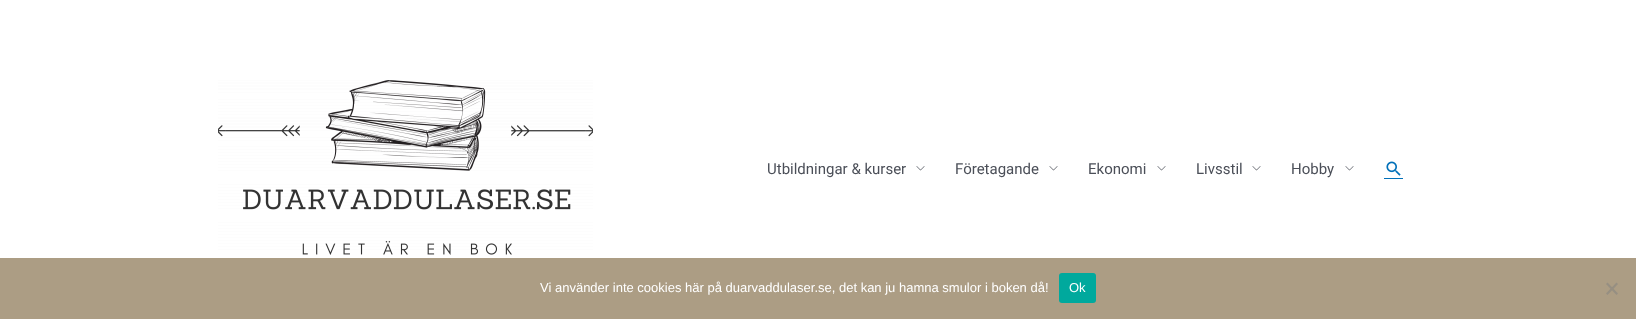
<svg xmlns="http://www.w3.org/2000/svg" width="1636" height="319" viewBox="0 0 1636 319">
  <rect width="100%" height="100%" fill="#ffffff"/>
  <image x="218" y="80" width="375" height="175" href="img1.png"/>
  <text x="767" y="174" font-family="Roboto" font-size="15" fill="#4b4f58">Utbildningar &amp; kurser</text>
  <image x="916" y="166" width="9" height="5" href="img2.png"/>
  <text x="955" y="174" font-family="Roboto" font-size="15" fill="#4b4f58">Företagande</text>
  <image x="1049" y="166" width="9" height="5" href="img2.png"/>
  <text x="1088" y="174" font-family="Roboto" font-size="15" fill="#4b4f58">Ekonomi</text>
  <image x="1157" y="166" width="9" height="5" href="img2.png"/>
  <text x="1196" y="174" font-family="Roboto" font-size="15" fill="#4b4f58">Livsstil</text>
  <image x="1252" y="166" width="9" height="5" href="img2.png"/>
  <text x="1291" y="174" font-family="Roboto" font-size="15" fill="#4b4f58">Hobby</text>
  <image x="1345" y="166" width="9" height="5" href="img2.png"/>
  <rect x="1384" y="178" width="19" height="1" fill="#0170b9"/>
  <image x="1386" y="161" width="15" height="15" href="img3.png"/>
  <rect x="0" y="258" width="1636" height="61" fill="#ac9d84"/>
  <text x="540" y="292" font-family="Liberation Sans" font-size="13" fill="#ffffff">Vi använder inte cookies här på duarvaddulaser.se, det kan ju hamna smulor i boken då!</text>
  <rect x="1059" y="273" width="37" height="30" rx="3" fill="#00a99d"/>
  <text x="1069" y="292" font-family="Liberation Sans" font-size="13" fill="#ffffff">Ok</text>
  <path d="M1616.5 282.5L1618 284L1607.5 295L1606 293.5Z" fill="#968f82"/>
  <path d="M1606 284L1607.5 282.5L1618 293.5L1616.5 295Z" fill="#968f82"/>
</svg>
